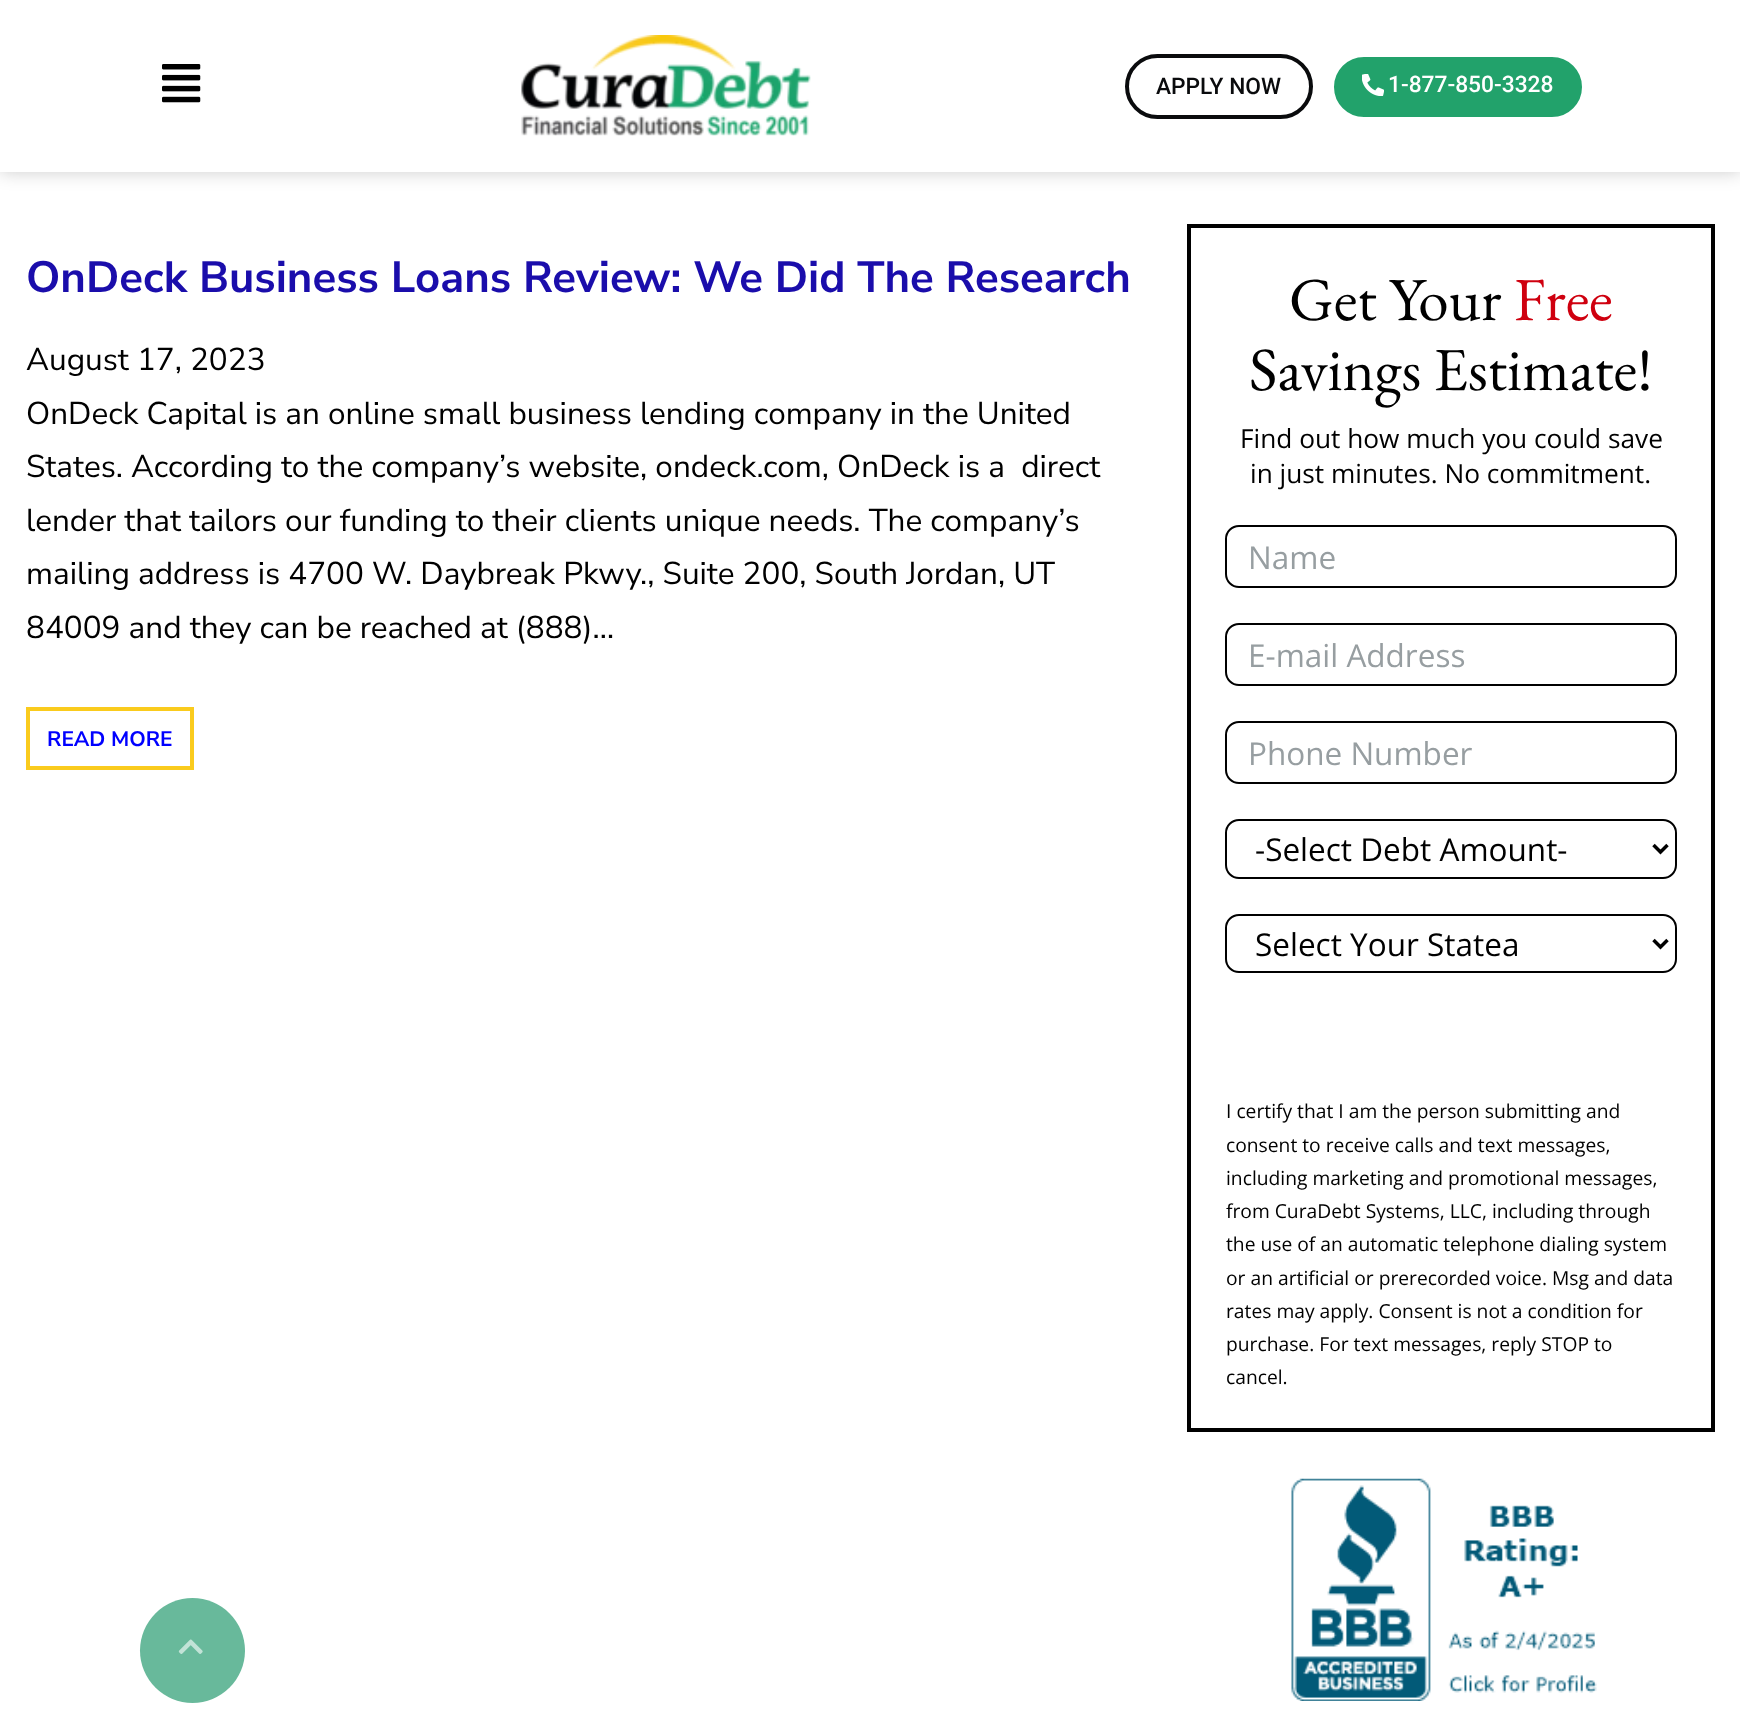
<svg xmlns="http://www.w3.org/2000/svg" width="1740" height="1729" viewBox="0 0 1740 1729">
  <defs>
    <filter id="blur1" x="-50%" y="-200%" width="200%" height="500%"><feGaussianBlur stdDeviation="9"/></filter>
  </defs>
  <rect width="100%" height="100%" fill="#ffffff"/>
  <rect x="0" y="0" width="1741" height="172" fill="#000000" fill-opacity="0.2" filter="url(#blur1)"/>
  <rect x="0" y="0" width="1740" height="172" fill="#ffffff"/>
  <image x="162" y="64" width="39" height="39" href="img1.png"/>
  <image x="521" y="35" width="290" height="101" href="img2.png"/>
  <rect x="1127" y="56" width="184" height="61" rx="30.5" fill="none" stroke="#0a0b0d" stroke-width="4"/>
  <text x="1156" y="94" font-family="Roboto" font-size="22.75" font-weight="500" fill="#0a0b0d">APPLY NOW</text>
  <rect x="1332" y="55" width="252" height="64" rx="32" fill="#22a26b" stroke="#ffffff" stroke-width="4"/>
  <image x="1362" y="74" width="22" height="22" href="img3.png"/>
  <text x="1388" y="92" font-family="Roboto" font-size="22.75" font-weight="500" fill="#ffffff">1-877-850-3328</text>
  <text x="26" y="292" font-family="Nunito Sans" font-size="43.75" font-weight="bold" fill="#1a0dab">OnDeck Business Loans Review: We Did The Research</text>
  <text x="26" y="370" font-family="Nunito Sans" font-size="31.5" fill="#000000">August 17, 2023</text>
  <text x="26" y="424" font-family="Nunito Sans" font-size="31.5" fill="#000000">OnDeck Capital is an online small business lending company in the United</text>
  <text x="26" y="477" font-family="Nunito Sans" font-size="31.5" fill="#000000" xml:space="preserve">States. According to the company’s website, ondeck.com, OnDeck is a  direct</text>
  <text x="26" y="531" font-family="Nunito Sans" font-size="31.5" fill="#000000">lender that tailors our funding to their clients unique needs. The company’s</text>
  <text x="26" y="584" font-family="Nunito Sans" font-size="31.5" fill="#000000">mailing address is 4700 W. Daybreak Pkwy., Suite 200, South Jordan, UT</text>
  <text x="26" y="638" font-family="Nunito Sans" font-size="31.5" fill="#000000">84009 and they can be reached at (888)…</text>
  <rect x="28" y="709" width="164" height="59" fill="none" stroke="#facb1d" stroke-width="4"/>
  <text x="47" y="746" font-family="Nunito Sans" font-size="21" font-weight="bold" fill="#0000ff">READ MORE</text>
  <rect x="1189" y="226" width="524" height="1204" fill="none" stroke="#000000" stroke-width="4"/>
  <text x="1289" y="320" font-family="EB Garamond" font-size="61.25" fill="#000000">Get Your</text>
  <text x="1514" y="320" font-family="EB Garamond" font-size="61.25" fill="#cf000f">Free</text>
  <text x="1249" y="390" font-family="EB Garamond" font-size="61.25" fill="#000000">Savings Estimate!</text>
  <text x="1240" y="448" font-family="Open Sans" font-size="26.25" fill="#000000">Find out how much you could save</text>
  <text x="1250" y="483" font-family="Open Sans" font-size="26.25" fill="#000000">in just minutes. No commitment.</text>
  <rect x="1226" y="526" width="450" height="61" rx="13" fill="none" stroke="#000000" stroke-width="2"/>
  <text x="1248" y="569" font-family="Open Sans" font-size="31.5" fill="#979ea1">Name</text>
  <rect x="1226" y="624" width="450" height="61" rx="13" fill="none" stroke="#000000" stroke-width="2"/>
  <text x="1248" y="667" font-family="Open Sans" font-size="31.5" fill="#979ea1">E-mail Address</text>
  <rect x="1226" y="722" width="450" height="61" rx="13" fill="none" stroke="#000000" stroke-width="2"/>
  <text x="1248" y="765" font-family="Open Sans" font-size="31.5" fill="#979ea1">Phone Number</text>
  <rect x="1226" y="820" width="450" height="58" rx="13" fill="none" stroke="#000000" stroke-width="2"/>
  <path d="M1653.5 845L1660.5 852L1667.5 845" fill="none" stroke="#000000" stroke-width="3.5"/>
  <text x="1255" y="861" font-family="Open Sans" font-size="31.5" fill="#000000">-Select Debt Amount-</text>
  <rect x="1226" y="915" width="450" height="57" rx="13" fill="none" stroke="#000000" stroke-width="2"/>
  <path d="M1653.5 940L1660.5 947L1667.5 940" fill="none" stroke="#000000" stroke-width="3.5"/>
  <text x="1255" y="956" font-family="Open Sans" font-size="31.5" fill="#000000">Select Your Statea</text>
  <text x="1226" y="1118" font-family="Open Sans" font-size="19.25" fill="#000000">I certify that I am the person submitting and</text>
  <text x="1226" y="1152" font-family="Open Sans" font-size="19.25" fill="#000000">consent to receive calls and text messages,</text>
  <text x="1226" y="1185" font-family="Open Sans" font-size="19.25" fill="#000000">including marketing and promotional messages,</text>
  <text x="1226" y="1218" font-family="Open Sans" font-size="19.25" fill="#000000">from CuraDebt Systems, LLC, including through</text>
  <text x="1226" y="1251" font-family="Open Sans" font-size="19.25" fill="#000000">the use of an automatic telephone dialing system</text>
  <text x="1226" y="1285" font-family="Open Sans" font-size="19.25" fill="#000000">or an artificial or prerecorded voice. Msg and data</text>
  <text x="1226" y="1318" font-family="Open Sans" font-size="19.25" fill="#000000">rates may apply. Consent is not a condition for</text>
  <text x="1226" y="1351" font-family="Open Sans" font-size="19.25" fill="#000000">purchase. For text messages, reply STOP to</text>
  <text x="1226" y="1384" font-family="Open Sans" font-size="19.25" fill="#000000">cancel.</text>
  <image x="1291" y="1478" width="306" height="223" href="img4.png"/>
  <circle cx="192.5" cy="1650.5" r="52.5" fill="#68b99b"/>
  <image x="178" y="1639" width="25" height="15" href="img5.png"/>
</svg>
